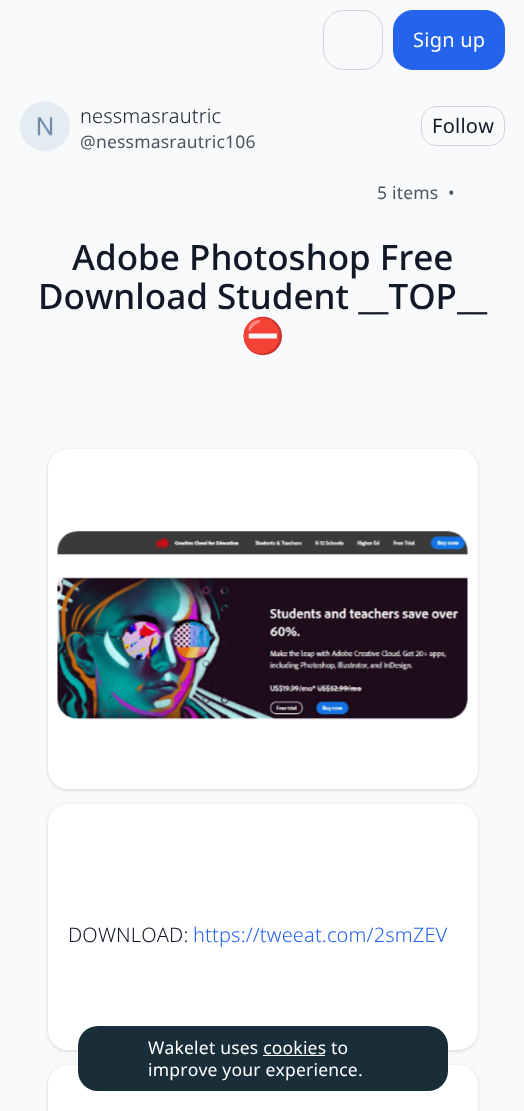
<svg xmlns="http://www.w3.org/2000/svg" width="524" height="1111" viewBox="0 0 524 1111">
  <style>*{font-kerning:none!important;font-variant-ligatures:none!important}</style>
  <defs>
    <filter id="blur1" x="-50%" y="-200%" width="200%" height="500%"><feGaussianBlur stdDeviation="1"/></filter>
    <filter id="blur2" x="-50%" y="-200%" width="200%" height="500%"><feGaussianBlur stdDeviation="2"/></filter>
  </defs>
  <rect width="100%" height="100%" fill="#f9fafb"/>
  <rect x="323.5" y="10.5" width="59" height="59" rx="19.5" fill="none" stroke="#d1d5db"/>
  <rect x="393.5" y="10.5" width="111" height="59" rx="19.5" fill="#2463eb" stroke="#2463eb"/>
  <text x="413" y="47" font-family="Noto Sans" font-size="20" letter-spacing="0.25" fill="#ffffff">Sign up</text>
  <image x="20" y="101" width="50" height="51" href="img1.png"/>
  <text x="80" y="123" font-family="Noto Sans" font-size="20" font-weight="300" letter-spacing="0.15" fill="#111827">nessmasrautric</text>
  <text x="80" y="148" font-family="Noto Sans" font-size="17.5" letter-spacing="0.2" fill="#4b5563">@nessmasrautric106</text>
  <rect x="421.5" y="106.5" width="83" height="39" rx="14.5" fill="none" stroke="#d1d5db"/>
  <text x="432" y="133" font-family="Noto Sans" font-size="20" letter-spacing="0.25" fill="#111827">Follow</text>
  <text x="377" y="199" font-family="Noto Sans" font-size="17.5" letter-spacing="0.2" fill="#4b5563">5 items</text>
  <text x="448" y="199" font-family="Noto Sans" font-size="17.5" letter-spacing="0.2" fill="#4b5563">•</text>
  <text x="72" y="270" font-family="Noto Sans" font-size="35" font-weight="500" fill="#111827">Adobe Photoshop Free</text>
  <text x="38" y="309" font-family="Noto Sans" font-size="35" font-weight="500" fill="#111827">Download Student __TOP__</text>
  <text x="241" y="348" font-family="Noto Color Emoji" font-size="35" fill="#111827">⛔</text>
  <rect x="48" y="450" width="430" height="340" rx="20" fill="#00183d" fill-opacity="0.06" filter="url(#blur1)"/>
  <rect x="48" y="450" width="430" height="340" rx="20" fill="#00183d" fill-opacity="0.1" filter="url(#blur2)"/>
  <rect x="48" y="449" width="430" height="340" rx="20" fill="#ffffff"/>
  <image x="57" y="531" width="411" height="189" href="img2.png"/>
  <rect x="48" y="805" width="430" height="246" rx="20" fill="#00183d" fill-opacity="0.06" filter="url(#blur1)"/>
  <rect x="48" y="805" width="430" height="246" rx="20" fill="#00183d" fill-opacity="0.1" filter="url(#blur2)"/>
  <rect x="48" y="804" width="430" height="246" rx="20" fill="#ffffff"/>
  <text x="68" y="942" font-family="Noto Sans" font-size="20" font-weight="300" letter-spacing="0.15" fill="#111827">DOWNLOAD:</text>
  <text x="193" y="942" font-family="Noto Sans" font-size="20" font-weight="300" letter-spacing="0.15" fill="#2463eb">https://tweeat.com/2smZEV</text>
  <rect x="48" y="1066" width="430" height="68" rx="20" fill="#00183d" fill-opacity="0.06" filter="url(#blur1)"/>
  <rect x="48" y="1066" width="430" height="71" rx="20" fill="#00183d" fill-opacity="0.1" filter="url(#blur2)"/>
  <path d="M68 1065H458C469 1065 478 1074 478 1085V1111H48V1085C48 1074 57 1065 68 1065Z" fill="#ffffff"/>
  <rect x="78" y="1026" width="370" height="65" rx="20" fill="#192e38"/>
  <text x="148" y="1054" font-family="Noto Sans" font-size="17.5" letter-spacing="0.2" fill="#ffffff">Wakelet uses cookies to</text>
  <rect x="263" y="1055" width="62" height="1" fill="#ffffff"/>
  <text x="148" y="1076" font-family="Noto Sans" font-size="17.5" letter-spacing="0.2" fill="#ffffff">improve your experience.</text>
</svg>
